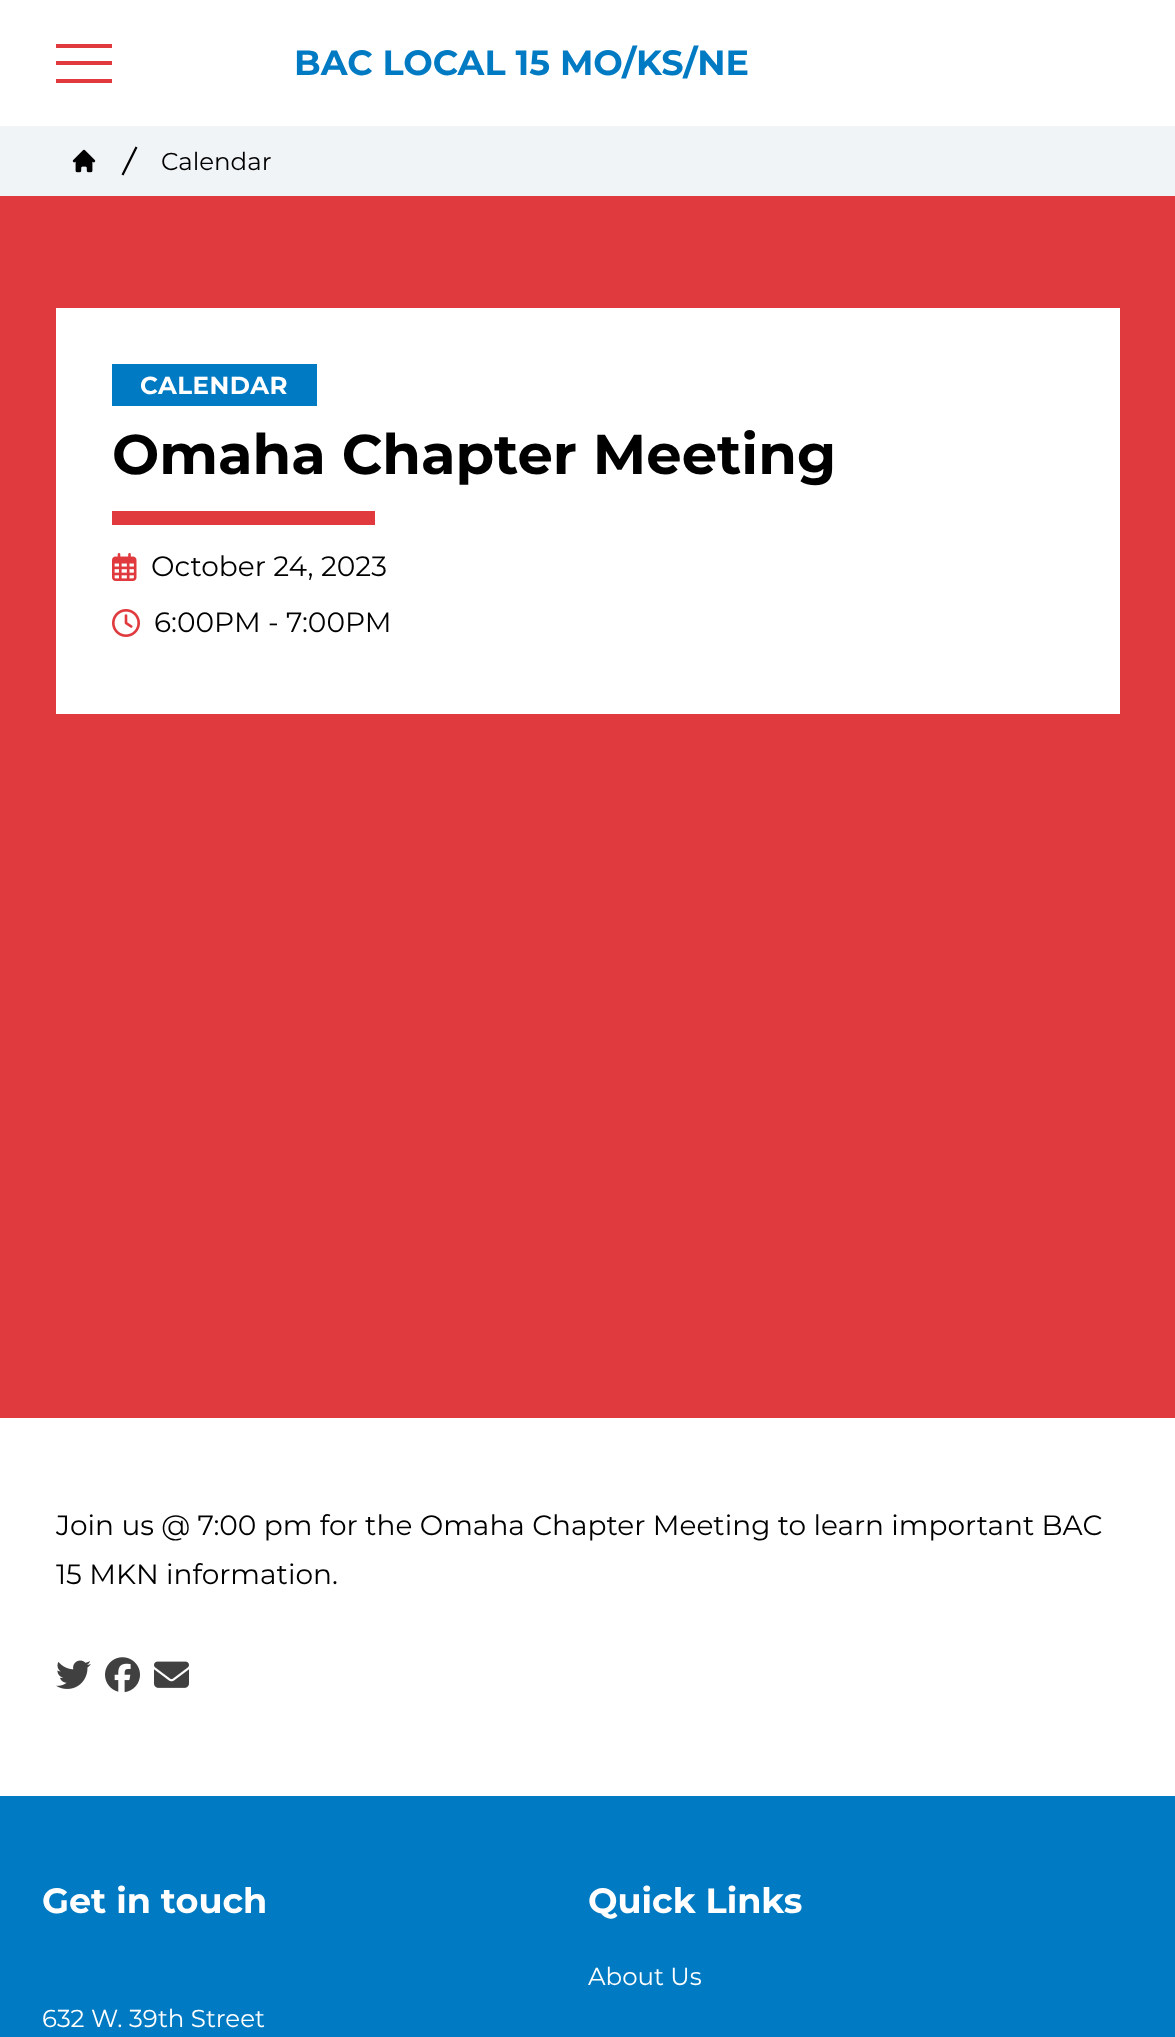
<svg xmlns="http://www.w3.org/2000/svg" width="1175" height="2037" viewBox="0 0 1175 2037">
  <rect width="100%" height="100%" fill="#ffffff"/>
  <rect x="56" y="44" width="56" height="4" fill="#e03a3e"/>
  <rect x="56" y="61" width="56" height="4" fill="#e03a3e"/>
  <rect x="56" y="79" width="56" height="4" fill="#e03a3e"/>
  <text x="294" y="75" font-family="Montserrat" font-size="35" font-weight="bold" fill="#007ac2">BAC LOCAL 15 MO/KS/NE</text>
  <rect x="0" y="126" width="1175" height="70" fill="#f0f4f7"/>
  <image x="72" y="149" width="24" height="24" href="img1.png"/>
  <path d="M121.5 174.5L135.5 146.5L137.5 147.5L123.5 175.5Z" fill="#000000"/>
  <text x="161" y="170" font-family="Montserrat" font-size="24.5" fill="#000000">Calendar</text>
  <rect x="0" y="196" width="1175" height="1222" fill="#e03a3e"/>
  <rect x="56" y="308" width="1064" height="406" fill="#ffffff"/>
  <rect x="112" y="364" width="205" height="42" fill="#007ac2"/>
  <text x="140" y="394" font-family="Montserrat" font-size="24.5" font-weight="bold" letter-spacing="0.5" fill="#ffffff">CALENDAR</text>
  <text x="112" y="474" font-family="Montserrat" font-size="56" font-weight="bold" fill="#000000">Omaha Chapter Meeting</text>
  <rect x="112" y="511" width="263" height="14" fill="#e03a3e"/>
  <image x="112" y="553" width="25" height="28" href="img2.png"/>
  <text x="151" y="576" font-family="Montserrat" font-size="28" fill="#000000">October 24, 2023</text>
  <image x="112" y="609" width="28" height="28" href="img3.png"/>
  <text x="154" y="632" font-family="Montserrat" font-size="28" fill="#000000">6:00PM - 7:00PM</text>
  <text x="56" y="1535" font-family="Montserrat" font-size="28" fill="#000000">Join us @ 7:00 pm for the Omaha Chapter Meeting to learn important BAC</text>
  <text x="56" y="1584" font-family="Montserrat" font-size="28" fill="#000000">15 MKN information.</text>
  <image x="56" y="1660" width="35" height="29" href="img4.png"/>
  <image x="105" y="1657" width="35" height="36" href="img5.png"/>
  <image x="154" y="1661" width="35" height="27" href="img6.png"/>
  <rect x="0" y="1796" width="1175" height="241" fill="#007ac2"/>
  <text x="42" y="1913" font-family="Montserrat" font-size="35" font-weight="bold" fill="#ffffff">Get in touch</text>
  <text x="42" y="2027" font-family="Montserrat" font-size="24.5" fill="#ffffff">632 W. 39th Street</text>
  <text x="588" y="1913" font-family="Montserrat" font-size="35" font-weight="bold" fill="#ffffff">Quick Links</text>
  <text x="588" y="1985" font-family="Montserrat" font-size="24.5" fill="#ffffff">About Us</text>
</svg>
